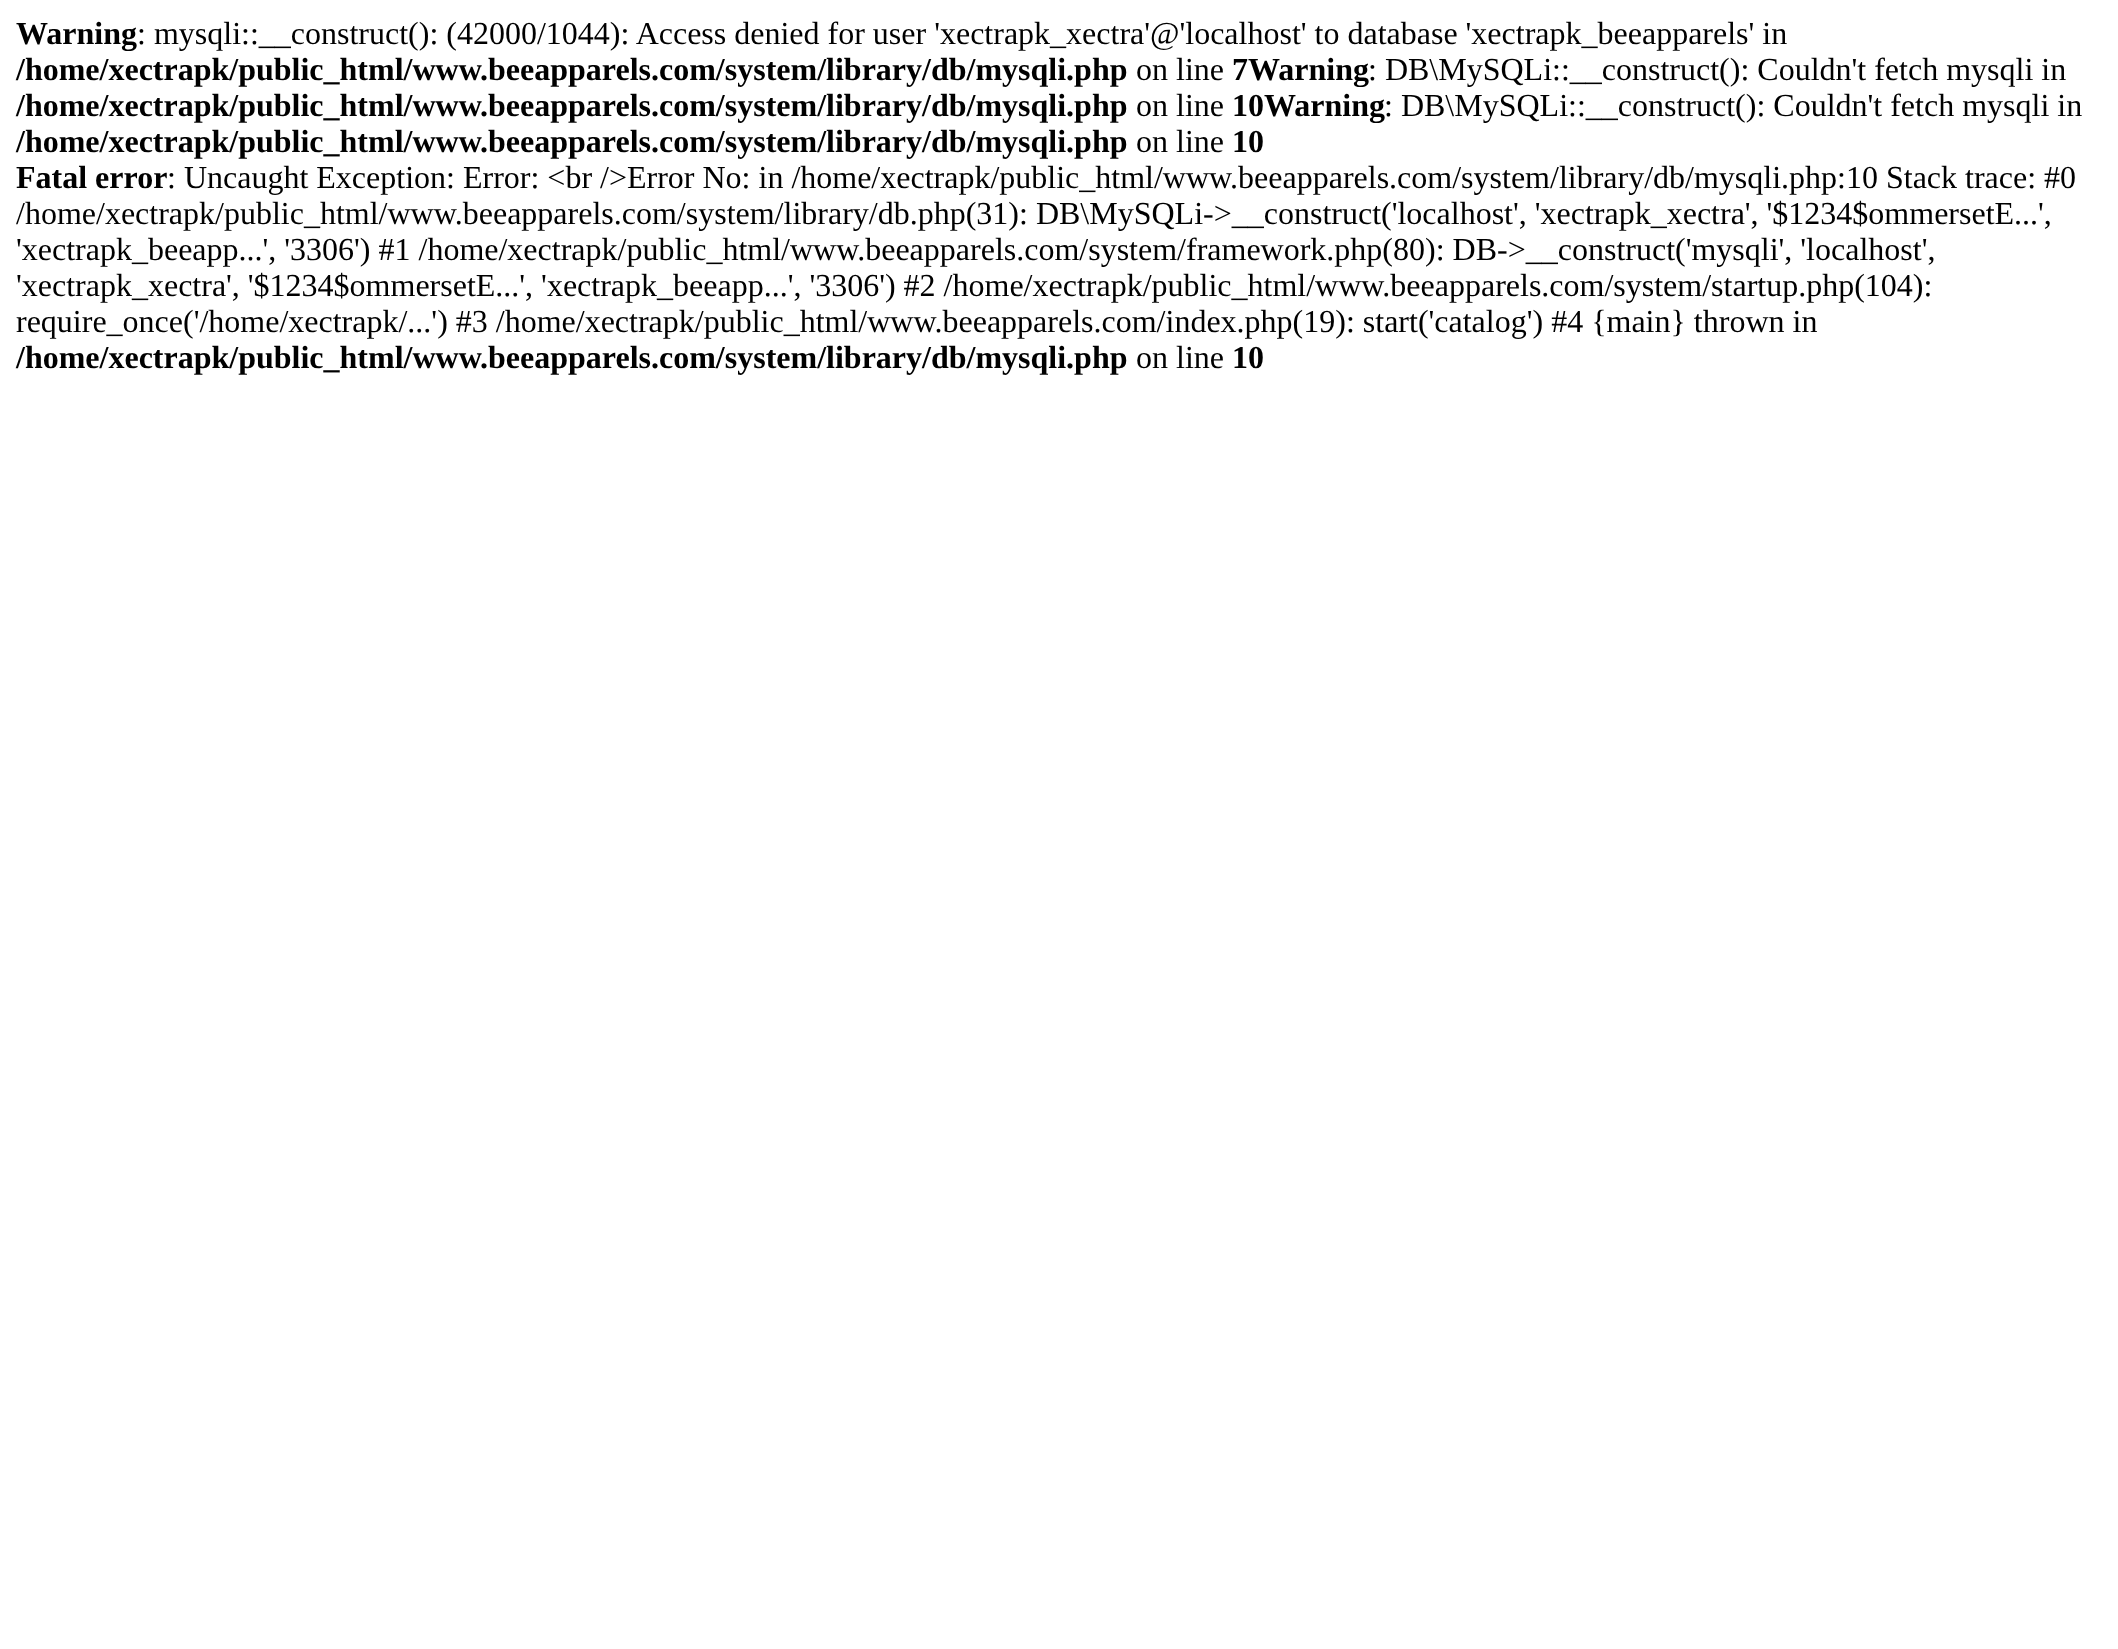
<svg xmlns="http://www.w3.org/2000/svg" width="2118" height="1649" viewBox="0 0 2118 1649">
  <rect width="100%" height="100%" fill="#ffffff"/>
  <text x="16" y="44" font-family="Liberation Serif" font-size="32" font-weight="bold" fill="#000000">Warning</text>
  <text x="137" y="44" font-family="Liberation Serif" font-size="32" fill="#000000">: mysqli::__construct(): (42000/1044): Access denied for user 'xectrapk_xectra'@'localhost' to database 'xectrapk_beeapparels' in</text>
  <text x="16" y="80" font-family="Liberation Serif" font-size="32" font-weight="bold" fill="#000000">/home/xectrapk/public_html/www.beeapparels.com/system/library/db/mysqli.php</text>
  <text x="1136" y="80" font-family="Liberation Serif" font-size="32" fill="#000000">on line</text>
  <text x="1232" y="80" font-family="Liberation Serif" font-size="32" font-weight="bold" fill="#000000">7Warning</text>
  <text x="1368" y="80" font-family="Liberation Serif" font-size="32" fill="#000000">: DB\MySQLi::__construct(): Couldn't fetch mysqli in</text>
  <text x="16" y="116" font-family="Liberation Serif" font-size="32" font-weight="bold" fill="#000000">/home/xectrapk/public_html/www.beeapparels.com/system/library/db/mysqli.php</text>
  <text x="1136" y="116" font-family="Liberation Serif" font-size="32" fill="#000000">on line</text>
  <text x="1232" y="116" font-family="Liberation Serif" font-size="32" font-weight="bold" fill="#000000">10Warning</text>
  <text x="1384" y="116" font-family="Liberation Serif" font-size="32" fill="#000000">: DB\MySQLi::__construct(): Couldn't fetch mysqli in</text>
  <text x="16" y="152" font-family="Liberation Serif" font-size="32" font-weight="bold" fill="#000000">/home/xectrapk/public_html/www.beeapparels.com/system/library/db/mysqli.php</text>
  <text x="1136" y="152" font-family="Liberation Serif" font-size="32" fill="#000000">on line</text>
  <text x="1232" y="152" font-family="Liberation Serif" font-size="32" font-weight="bold" fill="#000000">10</text>
  <text x="16" y="188" font-family="Liberation Serif" font-size="32" font-weight="bold" fill="#000000">Fatal error</text>
  <text x="167" y="188" font-family="Liberation Serif" font-size="32" fill="#000000">: Uncaught Exception: Error: &lt;br /&gt;Error No: in /home/xectrapk/public_html/www.beeapparels.com/system/library/db/mysqli.php:10 Stack trace: #0</text>
  <text x="16" y="224" font-family="Liberation Serif" font-size="32" fill="#000000">/home/xectrapk/public_html/www.beeapparels.com/system/library/db.php(31): DB\MySQLi-&gt;__construct('localhost', 'xectrapk_xectra', '$1234$ommersetE...',</text>
  <text x="16" y="260" font-family="Liberation Serif" font-size="32" fill="#000000">'xectrapk_beeapp...', '3306') #1 /home/xectrapk/public_html/www.beeapparels.com/system/framework.php(80): DB-&gt;__construct('mysqli', 'localhost',</text>
  <text x="16" y="296" font-family="Liberation Serif" font-size="32" fill="#000000">'xectrapk_xectra', '$1234$ommersetE...', 'xectrapk_beeapp...', '3306') #2 /home/xectrapk/public_html/www.beeapparels.com/system/startup.php(104):</text>
  <text x="16" y="332" font-family="Liberation Serif" font-size="32" fill="#000000">require_once('/home/xectrapk/...') #3 /home/xectrapk/public_html/www.beeapparels.com/index.php(19): start('catalog') #4 {main} thrown in</text>
  <text x="16" y="368" font-family="Liberation Serif" font-size="32" font-weight="bold" fill="#000000">/home/xectrapk/public_html/www.beeapparels.com/system/library/db/mysqli.php</text>
  <text x="1136" y="368" font-family="Liberation Serif" font-size="32" fill="#000000">on line</text>
  <text x="1232" y="368" font-family="Liberation Serif" font-size="32" font-weight="bold" fill="#000000">10</text>
</svg>
